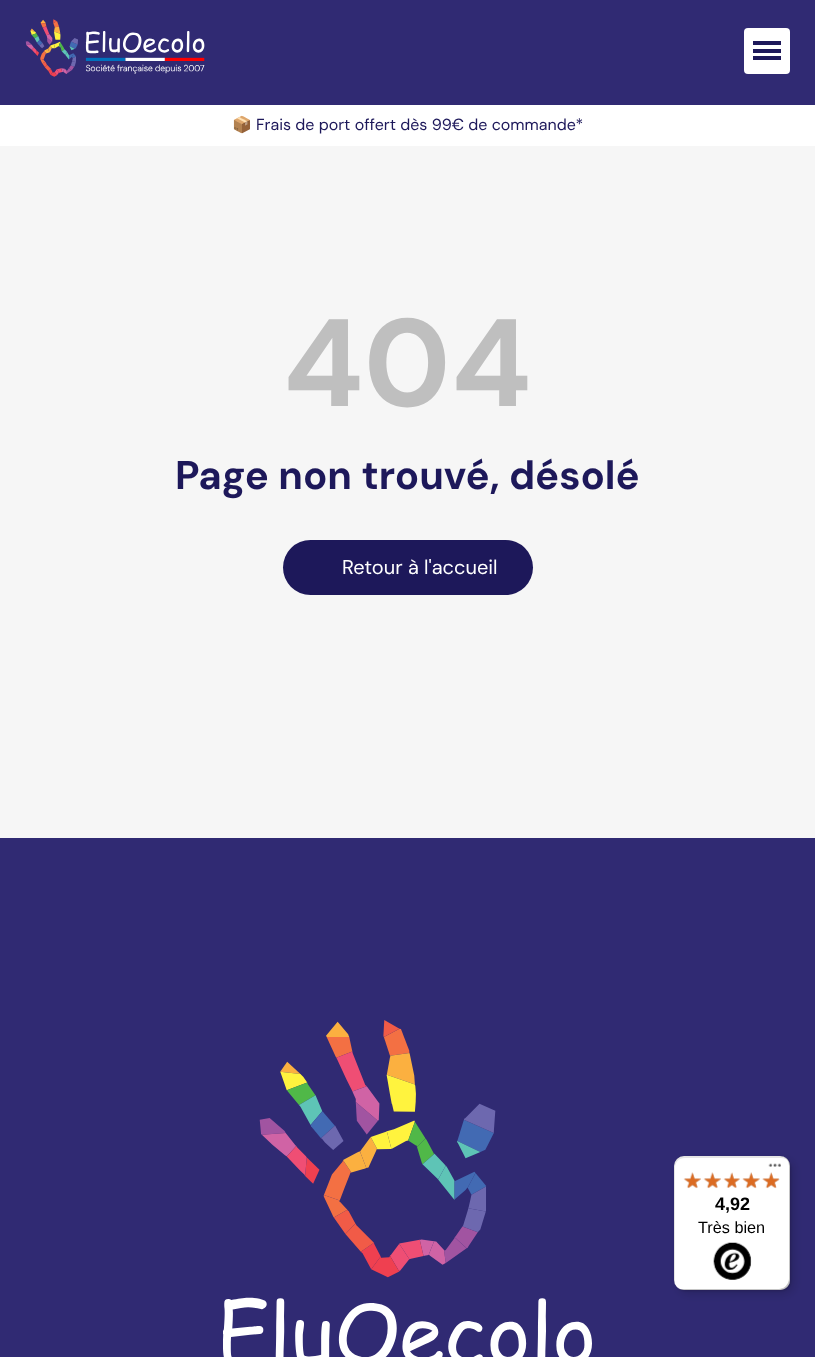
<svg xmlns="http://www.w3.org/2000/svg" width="815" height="1357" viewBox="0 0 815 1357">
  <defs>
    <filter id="blur1" x="-50%" y="-200%" width="200%" height="500%"><feGaussianBlur stdDeviation="5"/></filter>
    <filter id="blur2" x="-50%" y="-200%" width="200%" height="500%"><feGaussianBlur stdDeviation="1"/></filter>
  </defs>
  <rect width="100%" height="100%" fill="#ffffff"/>
  <rect x="0" y="0" width="815" height="105" fill="#302a73"/>
  <image x="25" y="19" width="180" height="58" href="img1.png"/>
  <rect x="744" y="28" width="46" height="46" rx="4" fill="#ffffff"/>
  <rect x="753" y="49" width="28" height="4" fill="#1d185a"/>
  <rect x="753" y="41" width="28" height="4" fill="#1d185a"/>
  <rect x="753" y="56" width="28" height="4" fill="#1d185a"/>
  <text x="232" y="130" font-family="Noto Color Emoji" font-size="16" fill="#1d185a">📦</text>
  <text x="256" y="130" font-family="DM Sans" font-size="16" fill="#1d185a">Frais de port offert dès 99€ de commande*</text>
  <rect x="0" y="146" width="815" height="692" fill="#f6f6f6"/>
  <text x="283" y="406" font-family="DM Sans" font-size="124" font-weight="bold" fill="#bfbfbf">404</text>
  <text x="175" y="489" font-family="DM Sans" font-size="40" font-weight="bold" fill="#1d185a">Page non trouvé, désolé</text>
  <rect x="283" y="540" width="250" height="55" rx="27.5" fill="#1d185a"/>
  <text x="342" y="574" font-family="DM Sans" font-size="20" fill="#ffffff">Retour à l'accueil</text>
  <rect x="0" y="838" width="815" height="519" fill="#302a73"/>
  <image x="223" y="1020" width="369" height="337" href="img2.png"/>
  <rect x="678" y="1160" width="116" height="134" rx="10" fill="#000000" fill-opacity="0.15" filter="url(#blur1)"/>
  <rect x="675" y="1158" width="116" height="133" rx="10" fill="#000000" fill-opacity="0.15" filter="url(#blur2)"/>
  <rect x="674" y="1156" width="116" height="134" rx="10" fill="#ffffff"/>
  <path d="M685 1158H781C784 1158 787 1159 789 1162C787 1158 784 1156 780 1156H684C678 1156 674 1160 674 1166V1280C674 1282 675 1285 676 1286C675 1285 675 1283 675 1281V1168C675 1162 679 1158 685 1158Z" fill="#000000" fill-opacity="0.1"/>
  <path d="M678 1288C680 1289 682 1290 684 1290H780C786 1290 790 1286 790 1280V1166C790 1163 789 1160 787 1158C788 1160 789 1162 789 1165V1279C789 1284 784 1289 779 1289H682C681 1289 679 1289 678 1288Z" fill="#000000" fill-opacity="0.2"/>
  <path d="M678 1288C679 1289 682 1290 684 1290H780C786 1290 790 1286 790 1280V1166C790 1160 786 1156 780 1156H779C785 1156 789 1160 789 1166V1279C789 1285 785 1289 779 1289H683C681 1289 679 1289 678 1288Z" fill="#323232" fill-opacity="0.2"/>
  <path d="M676 1286C678 1289 681 1290 684 1290H780C786 1290 790 1286 790 1280V1166C790 1160 786 1156 780 1156H779C785 1156 789 1160 789 1166V1279C789 1285 785 1289 779 1289H683C681 1289 678 1288 676 1286Z" fill="#ffffff" fill-opacity="0.3"/>
  <image x="768" y="1163" width="13" height="4" href="img3.png"/>
  <image x="684" y="1172" width="17" height="16" href="img9.png"/>
  <image x="683" y="1172" width="18" height="17" href="img4.png"/>
  <image x="704" y="1172" width="17" height="16" href="img10.png"/>
  <image x="703" y="1172" width="18" height="17" href="img5.png"/>
  <image x="724" y="1173" width="16" height="15" href="img11.png"/>
  <image x="723" y="1172" width="17" height="16" href="img6.png"/>
  <image x="743" y="1172" width="17" height="16" href="img12.png"/>
  <image x="742" y="1172" width="18" height="17" href="img7.png"/>
  <image x="762" y="1172" width="18" height="16" href="img13.png"/>
  <image x="762" y="1172" width="17" height="17" href="img8.png"/>
  <text x="715" y="1210" font-family="Liberation Sans" font-size="18" font-weight="bold" fill="#000000">4,92</text>
  <text x="698" y="1233" font-family="Liberation Sans" font-size="16.25" fill="#000000">Très bien</text>
  <image x="713" y="1242" width="39" height="38" href="img14.png"/>
</svg>
